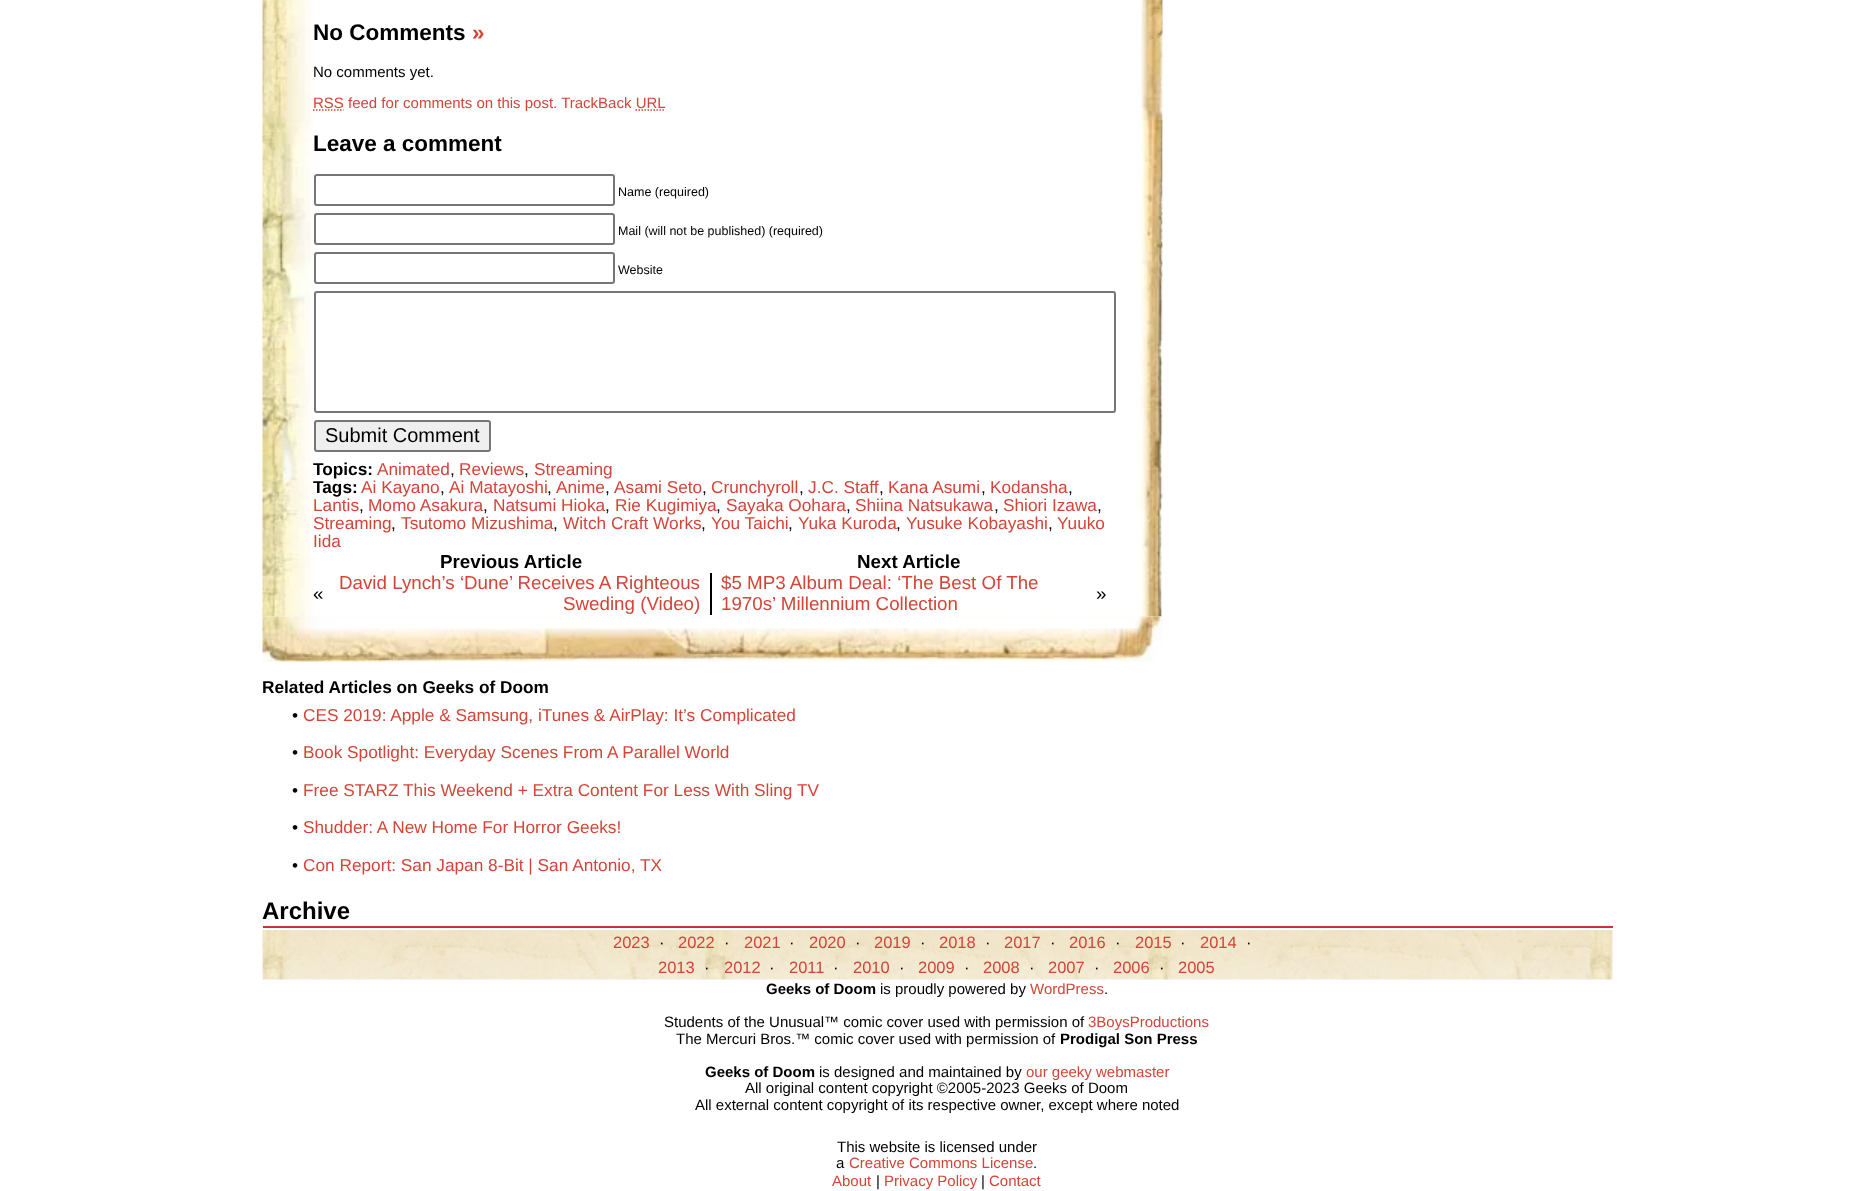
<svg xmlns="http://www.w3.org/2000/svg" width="1873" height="1191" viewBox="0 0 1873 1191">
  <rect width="100%" height="100%" fill="#ffffff"/>
  <image x="262" y="0" width="52" height="617" href="img1.png"/>
  <text x="313" y="40" font-family="Liberation Sans" font-size="22.5" font-weight="bold" fill="#000000">No Comments</text>
  <text x="472" y="40" font-family="Liberation Sans" font-size="22.5" font-weight="bold" fill="#d24538">»</text>
  <text x="313" y="77" font-family="Liberation Sans" font-size="15" fill="#000000">No comments yet.</text>
  <path d="M313 110H343.5" fill="none" stroke="#d24538" stroke-width="1.5" stroke-dasharray="1.5 1.5"/>
  <text x="313" y="108" font-family="Liberation Sans" font-size="15" fill="#d24538">RSS feed for comments on this post. TrackBack URL</text>
  <path d="M635.5 110H665.5" fill="none" stroke="#d24538" stroke-width="1.5" stroke-dasharray="1.5 1.5"/>
  <text x="313" y="151" font-family="Liberation Sans" font-size="22.5" font-weight="bold" fill="#000000">Leave a comment</text>
  <rect x="315" y="175" width="299" height="30" rx="2" fill="none" stroke="#767676" stroke-width="2"/>
  <text x="618" y="196" font-family="Liberation Sans" font-size="12.5" fill="#000000">Name (required)</text>
  <rect x="315" y="214" width="299" height="30" rx="2" fill="none" stroke="#767676" stroke-width="2"/>
  <text x="618" y="235" font-family="Liberation Sans" font-size="12.5" fill="#000000">Mail (will not be published) (required)</text>
  <rect x="315" y="253" width="299" height="30" rx="2" fill="none" stroke="#767676" stroke-width="2"/>
  <text x="618" y="274" font-family="Liberation Sans" font-size="12.5" fill="#000000">Website</text>
  <rect x="315" y="292" width="800" height="120" rx="2" fill="none" stroke="#767676" stroke-width="2"/>
  <rect x="315" y="421" width="175" height="30" rx="2" fill="#efefef" stroke="#767676" stroke-width="2"/>
  <text x="325" y="442" font-family="Liberation Sans" font-size="20" fill="#000000">Submit Comment</text>
  <text x="313" y="475" font-family="Liberation Sans" font-size="17.25" font-weight="bold" fill="#000000">Topics:</text>
  <text x="377" y="475" font-family="Liberation Sans" font-size="17.25" fill="#d24538">Animated</text>
  <text x="450" y="475" font-family="Liberation Sans" font-size="17.25" fill="#000000">,</text>
  <text x="459" y="475" font-family="Liberation Sans" font-size="17.25" fill="#d24538">Reviews</text>
  <text x="524" y="475" font-family="Liberation Sans" font-size="17.25" fill="#000000">,</text>
  <text x="534" y="475" font-family="Liberation Sans" font-size="17.25" fill="#d24538">Streaming</text>
  <text x="313" y="493" font-family="Liberation Sans" font-size="17.25" font-weight="bold" fill="#000000">Tags:</text>
  <text x="361" y="493" font-family="Liberation Sans" font-size="17.25" fill="#d24538">Ai Kayano</text>
  <text x="440" y="493" font-family="Liberation Sans" font-size="17.25" fill="#000000">,</text>
  <text x="449" y="493" font-family="Liberation Sans" font-size="17.25" fill="#d24538">Ai Matayoshi</text>
  <text x="547" y="493" font-family="Liberation Sans" font-size="17.25" fill="#000000">,</text>
  <text x="556" y="493" font-family="Liberation Sans" font-size="17.25" fill="#d24538">Anime</text>
  <text x="605" y="493" font-family="Liberation Sans" font-size="17.25" fill="#000000">,</text>
  <text x="614" y="493" font-family="Liberation Sans" font-size="17.25" fill="#d24538">Asami Seto</text>
  <text x="702" y="493" font-family="Liberation Sans" font-size="17.25" fill="#000000">,</text>
  <text x="711" y="493" font-family="Liberation Sans" font-size="17.25" fill="#d24538">Crunchyroll</text>
  <text x="799" y="493" font-family="Liberation Sans" font-size="17.25" fill="#000000">,</text>
  <text x="808" y="493" font-family="Liberation Sans" font-size="17.25" fill="#d24538">J.C. Staff</text>
  <text x="879" y="493" font-family="Liberation Sans" font-size="17.25" fill="#000000">,</text>
  <text x="888" y="493" font-family="Liberation Sans" font-size="17.25" fill="#d24538">Kana Asumi</text>
  <text x="981" y="493" font-family="Liberation Sans" font-size="17.25" fill="#000000">,</text>
  <text x="990" y="493" font-family="Liberation Sans" font-size="17.25" fill="#d24538">Kodansha</text>
  <text x="1068" y="493" font-family="Liberation Sans" font-size="17.25" fill="#000000">,</text>
  <text x="313" y="511" font-family="Liberation Sans" font-size="17.25" fill="#d24538">Lantis</text>
  <text x="359" y="511" font-family="Liberation Sans" font-size="17.25" fill="#000000">,</text>
  <text x="368" y="511" font-family="Liberation Sans" font-size="17.25" fill="#d24538">Momo Asakura</text>
  <text x="483" y="511" font-family="Liberation Sans" font-size="17.25" fill="#000000">,</text>
  <text x="493" y="511" font-family="Liberation Sans" font-size="17.25" fill="#d24538">Natsumi Hioka</text>
  <text x="605" y="511" font-family="Liberation Sans" font-size="17.25" fill="#000000">,</text>
  <text x="615" y="511" font-family="Liberation Sans" font-size="17.25" fill="#d24538">Rie Kugimiya</text>
  <text x="716" y="511" font-family="Liberation Sans" font-size="17.25" fill="#000000">,</text>
  <text x="726" y="511" font-family="Liberation Sans" font-size="17.25" fill="#d24538">Sayaka Oohara</text>
  <text x="846" y="511" font-family="Liberation Sans" font-size="17.25" fill="#000000">,</text>
  <text x="855" y="511" font-family="Liberation Sans" font-size="17.25" fill="#d24538">Shiina Natsukawa</text>
  <text x="994" y="511" font-family="Liberation Sans" font-size="17.25" fill="#000000">,</text>
  <text x="1003" y="511" font-family="Liberation Sans" font-size="17.25" fill="#d24538">Shiori Izawa</text>
  <text x="1097" y="511" font-family="Liberation Sans" font-size="17.25" fill="#000000">,</text>
  <text x="313" y="529" font-family="Liberation Sans" font-size="17.25" fill="#d24538">Streaming</text>
  <text x="391" y="529" font-family="Liberation Sans" font-size="17.25" fill="#000000">,</text>
  <text x="401" y="529" font-family="Liberation Sans" font-size="17.25" fill="#d24538">Tsutomo Mizushima</text>
  <text x="553" y="529" font-family="Liberation Sans" font-size="17.25" fill="#000000">,</text>
  <text x="563" y="529" font-family="Liberation Sans" font-size="17.25" fill="#d24538">Witch Craft Works</text>
  <text x="701" y="529" font-family="Liberation Sans" font-size="17.25" fill="#000000">,</text>
  <text x="711" y="529" font-family="Liberation Sans" font-size="17.25" fill="#d24538">You Taichi</text>
  <text x="788" y="529" font-family="Liberation Sans" font-size="17.25" fill="#000000">,</text>
  <text x="798" y="529" font-family="Liberation Sans" font-size="17.25" fill="#d24538">Yuka Kuroda</text>
  <text x="896" y="529" font-family="Liberation Sans" font-size="17.25" fill="#000000">,</text>
  <text x="906" y="529" font-family="Liberation Sans" font-size="17.25" fill="#d24538">Yusuke Kobayashi</text>
  <text x="1048" y="529" font-family="Liberation Sans" font-size="17.25" fill="#000000">,</text>
  <text x="1057" y="529" font-family="Liberation Sans" font-size="17.25" fill="#d24538">Yuuko</text>
  <text x="313" y="547" font-family="Liberation Sans" font-size="17.25" fill="#d24538">Iida</text>
  <text x="440" y="568" font-family="Liberation Sans" font-size="18.75" font-weight="bold" fill="#000000">Previous Article</text>
  <text x="857" y="568" font-family="Liberation Sans" font-size="18.75" font-weight="bold" fill="#000000">Next Article</text>
  <text x="313" y="600" font-family="Liberation Sans" font-size="18.75" fill="#000000">«</text>
  <text x="339" y="589" font-family="Liberation Sans" font-size="18.75" fill="#d24538">David Lynch’s ‘Dune’ Receives A Righteous</text>
  <text x="563" y="610" font-family="Liberation Sans" font-size="18.75" fill="#d24538">Sweding (Video)</text>
  <rect x="710" y="573" width="2" height="42" fill="#000000"/>
  <text x="721" y="589" font-family="Liberation Sans" font-size="18.75" fill="#d24538">$5 MP3 Album Deal: ‘The Best Of The</text>
  <text x="721" y="610" font-family="Liberation Sans" font-size="18.75" fill="#d24538">1970s’ Millennium Collection</text>
  <text x="1096" y="600" font-family="Liberation Sans" font-size="18.75" fill="#000000">»</text>
  <image x="1136" y="0" width="27" height="617" href="img2.png"/>
  <image x="262" y="616" width="901" height="46" href="img3.png"/>
  <text x="262" y="693" font-family="Liberation Sans" font-size="17.25" font-weight="bold" fill="#000000">Related Articles on Geeks of Doom</text>
  <text x="292" y="721" font-family="Liberation Sans" font-size="17.25" fill="#000000">•</text>
  <text x="303" y="721" font-family="Liberation Sans" font-size="17.25" fill="#d24538">CES 2019: Apple &amp; Samsung, iTunes &amp; AirPlay: It’s Complicated</text>
  <text x="292" y="758" font-family="Liberation Sans" font-size="17.25" fill="#000000">•</text>
  <text x="303" y="758" font-family="Liberation Sans" font-size="17.25" fill="#d24538">Book Spotlight: Everyday Scenes From A Parallel World</text>
  <text x="292" y="796" font-family="Liberation Sans" font-size="17.25" fill="#000000">•</text>
  <text x="303" y="796" font-family="Liberation Sans" font-size="17.25" fill="#d24538">Free STARZ This Weekend + Extra Content For Less With Sling TV</text>
  <text x="292" y="833" font-family="Liberation Sans" font-size="17.25" fill="#000000">•</text>
  <text x="303" y="833" font-family="Liberation Sans" font-size="17.25" fill="#d24538">Shudder: A New Home For Horror Geeks!</text>
  <text x="292" y="871" font-family="Liberation Sans" font-size="17.25" fill="#000000">•</text>
  <text x="303" y="871" font-family="Liberation Sans" font-size="17.25" fill="#d24538">Con Report: San Japan 8-Bit | San Antonio, TX</text>
  <rect x="263" y="926" width="1350" height="2" fill="#cc3333"/>
  <text x="262" y="919" font-family="Liberation Sans" font-size="24" font-weight="bold" fill="#000000">Archive</text>
  <image x="262" y="930" width="1351" height="50" href="img4.png"/>
  <text x="613" y="948" font-family="Liberation Sans" font-size="16.5" fill="#d24538">2023</text>
  <text x="659" y="948" font-family="Liberation Sans" font-size="16.5" fill="#000000">·</text>
  <text x="678" y="948" font-family="Liberation Sans" font-size="16.5" fill="#d24538">2022</text>
  <text x="724" y="948" font-family="Liberation Sans" font-size="16.5" fill="#000000">·</text>
  <text x="744" y="948" font-family="Liberation Sans" font-size="16.5" fill="#d24538">2021</text>
  <text x="789" y="948" font-family="Liberation Sans" font-size="16.5" fill="#000000">·</text>
  <text x="809" y="948" font-family="Liberation Sans" font-size="16.5" fill="#d24538">2020</text>
  <text x="855" y="948" font-family="Liberation Sans" font-size="16.5" fill="#000000">·</text>
  <text x="874" y="948" font-family="Liberation Sans" font-size="16.5" fill="#d24538">2019</text>
  <text x="920" y="948" font-family="Liberation Sans" font-size="16.5" fill="#000000">·</text>
  <text x="939" y="948" font-family="Liberation Sans" font-size="16.5" fill="#d24538">2018</text>
  <text x="985" y="948" font-family="Liberation Sans" font-size="16.5" fill="#000000">·</text>
  <text x="1004" y="948" font-family="Liberation Sans" font-size="16.5" fill="#d24538">2017</text>
  <text x="1050" y="948" font-family="Liberation Sans" font-size="16.5" fill="#000000">·</text>
  <text x="1069" y="948" font-family="Liberation Sans" font-size="16.5" fill="#d24538">2016</text>
  <text x="1115" y="948" font-family="Liberation Sans" font-size="16.5" fill="#000000">·</text>
  <text x="1135" y="948" font-family="Liberation Sans" font-size="16.5" fill="#d24538">2015</text>
  <text x="1180" y="948" font-family="Liberation Sans" font-size="16.5" fill="#000000">·</text>
  <text x="1200" y="948" font-family="Liberation Sans" font-size="16.5" fill="#d24538">2014</text>
  <text x="1246" y="948" font-family="Liberation Sans" font-size="16.5" fill="#000000">·</text>
  <text x="658" y="973" font-family="Liberation Sans" font-size="16.5" fill="#d24538">2013</text>
  <text x="704" y="973" font-family="Liberation Sans" font-size="16.5" fill="#000000">·</text>
  <text x="724" y="973" font-family="Liberation Sans" font-size="16.5" fill="#d24538">2012</text>
  <text x="769" y="973" font-family="Liberation Sans" font-size="16.5" fill="#000000">·</text>
  <text x="789" y="973" font-family="Liberation Sans" font-size="16.5" fill="#d24538">2011</text>
  <text x="833" y="973" font-family="Liberation Sans" font-size="16.5" fill="#000000">·</text>
  <text x="853" y="973" font-family="Liberation Sans" font-size="16.5" fill="#d24538">2010</text>
  <text x="899" y="973" font-family="Liberation Sans" font-size="16.5" fill="#000000">·</text>
  <text x="918" y="973" font-family="Liberation Sans" font-size="16.5" fill="#d24538">2009</text>
  <text x="964" y="973" font-family="Liberation Sans" font-size="16.5" fill="#000000">·</text>
  <text x="983" y="973" font-family="Liberation Sans" font-size="16.5" fill="#d24538">2008</text>
  <text x="1029" y="973" font-family="Liberation Sans" font-size="16.5" fill="#000000">·</text>
  <text x="1048" y="973" font-family="Liberation Sans" font-size="16.5" fill="#d24538">2007</text>
  <text x="1094" y="973" font-family="Liberation Sans" font-size="16.5" fill="#000000">·</text>
  <text x="1113" y="973" font-family="Liberation Sans" font-size="16.5" fill="#d24538">2006</text>
  <text x="1159" y="973" font-family="Liberation Sans" font-size="16.5" fill="#000000">·</text>
  <text x="1178" y="973" font-family="Liberation Sans" font-size="16.5" fill="#d24538">2005</text>
  <text x="766" y="994" font-family="Liberation Sans" font-size="15" font-weight="bold" fill="#000000">Geeks of Doom</text>
  <text x="880" y="994" font-family="Liberation Sans" font-size="15" fill="#000000">is proudly powered by</text>
  <text x="1030" y="994" font-family="Liberation Sans" font-size="15" fill="#d24538">WordPress</text>
  <text x="1104" y="994" font-family="Liberation Sans" font-size="15" fill="#000000">.</text>
  <text x="664" y="1027" font-family="Liberation Sans" font-size="15" fill="#000000">Students of the Unusual™ comic cover used with permission of</text>
  <text x="1088" y="1027" font-family="Liberation Sans" font-size="15" fill="#d24538">3BoysProductions</text>
  <text x="676" y="1044" font-family="Liberation Sans" font-size="15" fill="#000000">The Mercuri Bros.™ comic cover used with permission of</text>
  <text x="1060" y="1044" font-family="Liberation Sans" font-size="15" font-weight="bold" fill="#000000">Prodigal Son Press</text>
  <text x="705" y="1077" font-family="Liberation Sans" font-size="15" font-weight="bold" fill="#000000">Geeks of Doom</text>
  <text x="819" y="1077" font-family="Liberation Sans" font-size="15" fill="#000000">is designed and maintained by</text>
  <text x="1026" y="1077" font-family="Liberation Sans" font-size="15" fill="#d24538">our geeky webmaster</text>
  <text x="745" y="1093" font-family="Liberation Sans" font-size="15" fill="#000000">All original content copyright ©2005-2023 Geeks of Doom</text>
  <text x="695" y="1110" font-family="Liberation Sans" font-size="15" fill="#000000">All external content copyright of its respective owner, except where noted</text>
  <text x="837" y="1152" font-family="Liberation Sans" font-size="15" fill="#000000">This website is licensed under</text>
  <text x="836" y="1168" font-family="Liberation Sans" font-size="15" fill="#000000">a</text>
  <text x="849" y="1168" font-family="Liberation Sans" font-size="15" fill="#d24538">Creative Commons License</text>
  <text x="1033" y="1168" font-family="Liberation Sans" font-size="15" fill="#000000">.</text>
  <text x="832" y="1186" font-family="Liberation Sans" font-size="15" fill="#d24538">About</text>
  <text x="876" y="1186" font-family="Liberation Sans" font-size="15" fill="#000000">|</text>
  <text x="884" y="1186" font-family="Liberation Sans" font-size="15" fill="#d24538">Privacy Policy</text>
  <text x="981" y="1186" font-family="Liberation Sans" font-size="15" fill="#000000">|</text>
  <text x="989" y="1186" font-family="Liberation Sans" font-size="15" fill="#d24538">Contact</text>
</svg>
